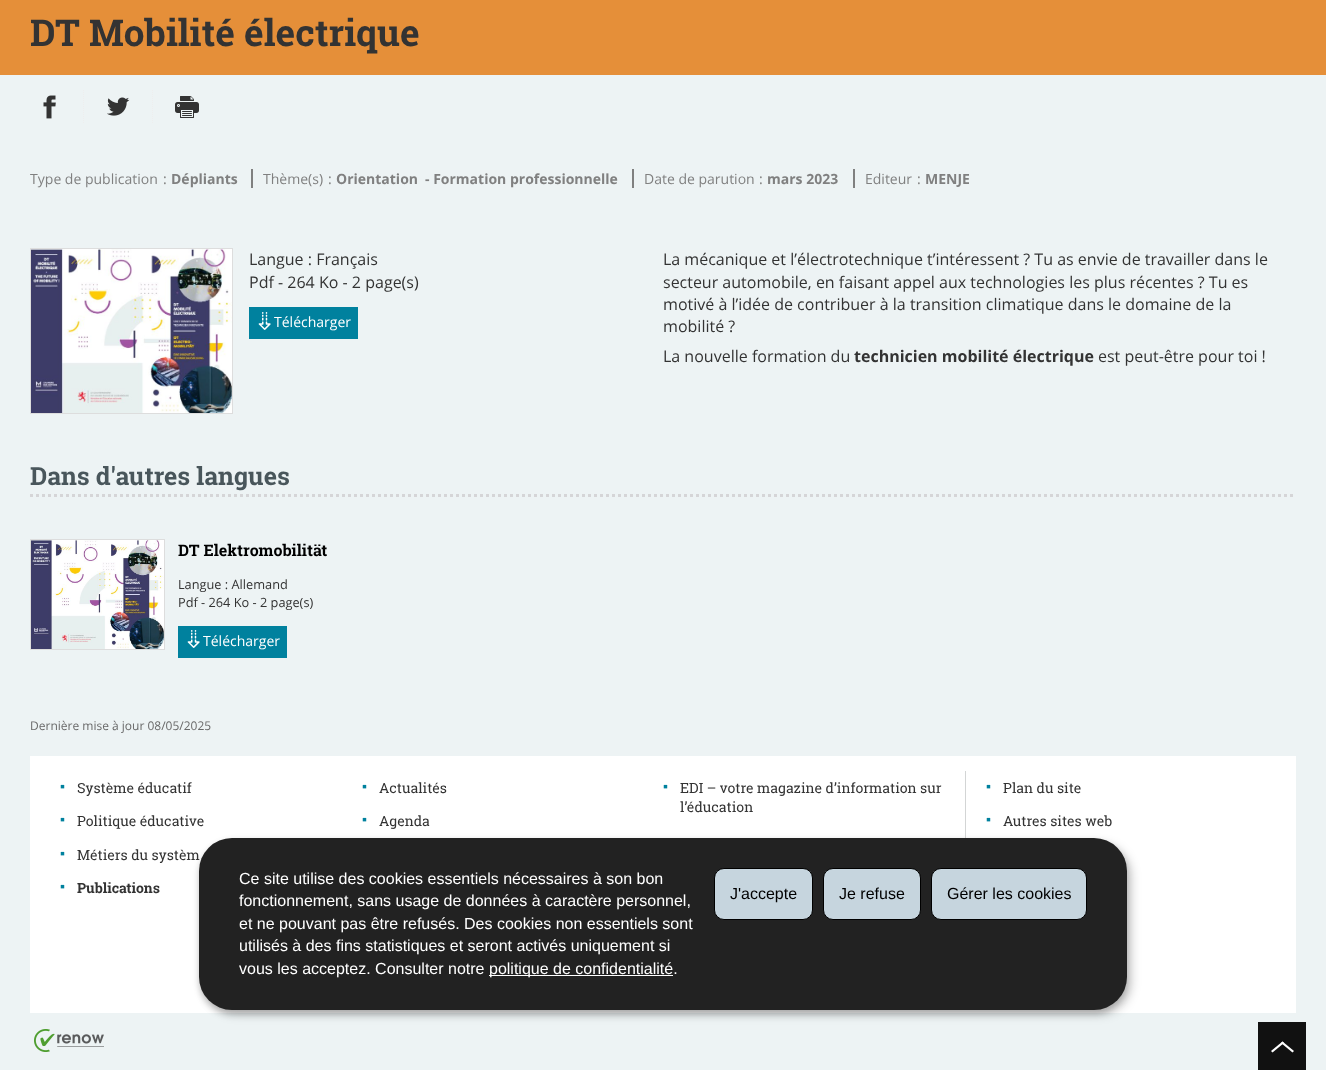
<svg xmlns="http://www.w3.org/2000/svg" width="1326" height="1070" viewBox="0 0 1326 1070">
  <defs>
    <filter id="blur1" x="-50%" y="-200%" width="200%" height="500%"><feGaussianBlur stdDeviation="5"/></filter>
    <filter id="blur2" x="-50%" y="-200%" width="200%" height="500%"><feGaussianBlur stdDeviation="3"/></filter>
  </defs>
  <rect width="100%" height="100%" fill="#edf3f4"/>
  <rect x="0" y="0" width="1326" height="75" fill="#e58f39"/>
  <text x="30" y="46" font-family="Roboto Slab" font-size="37" font-weight="bold" fill="#333333">DT Mobilité électrique</text>
  <image x="43" y="95" width="13" height="24" href="img1.png"/>
  <path d="M83.5 90V123" fill="none" stroke="#eeeeee" stroke-dasharray="1 1"/>
  <image x="107" y="97" width="23" height="19" href="img2.png"/>
  <path d="M152.5 90V123" fill="none" stroke="#eeeeee" stroke-dasharray="1 1"/>
  <image x="175" y="96" width="24" height="22" href="img3.png"/>
  <text x="30" y="184" font-family="Open Sans" font-size="14" fill="#808080">Type de publication</text>
  <text x="163" y="184" font-family="Open Sans" font-size="14" fill="#808080">:</text>
  <text x="171" y="184" font-family="Open Sans" font-size="14" font-weight="bold" fill="#808080">Dépliants</text>
  <text x="263" y="184" font-family="Open Sans" font-size="14" fill="#808080">Thème(s)</text>
  <rect x="251" y="169" width="2" height="19" fill="#808080"/>
  <text x="328" y="184" font-family="Open Sans" font-size="14" fill="#808080">:</text>
  <text x="336" y="184" font-family="Open Sans" font-size="14" font-weight="bold" fill="#808080">Orientation</text>
  <text x="425" y="184" font-family="Open Sans" font-size="14" font-weight="bold" fill="#808080">- Formation professionnelle</text>
  <text x="644" y="184" font-family="Open Sans" font-size="14" fill="#808080">Date de parution</text>
  <rect x="632" y="169" width="2" height="19" fill="#808080"/>
  <text x="759" y="184" font-family="Open Sans" font-size="14" fill="#808080">:</text>
  <text x="767" y="184" font-family="Open Sans" font-size="14" font-weight="bold" fill="#808080">mars 2023</text>
  <text x="865" y="184" font-family="Open Sans" font-size="14" fill="#808080">Editeur</text>
  <rect x="853" y="169" width="2" height="19" fill="#808080"/>
  <text x="917" y="184" font-family="Open Sans" font-size="14" fill="#808080">:</text>
  <text x="925" y="184" font-family="Open Sans" font-size="14" font-weight="bold" fill="#808080">MENJE</text>
  <rect x="30.5" y="248.5" width="202" height="165" fill="none" stroke="#dddddd"/>
  <image x="31" y="249" width="201" height="164" href="img4.png"/>
  <text x="249" y="265" font-family="Open Sans" font-size="16" fill="#333333">Langue : Français</text>
  <text x="249" y="288" font-family="Open Sans" font-size="16" fill="#333333">Pdf - 264 Ko - 2 page(s)</text>
  <rect x="249" y="307" width="109" height="32" fill="#00819e"/>
  <image x="258" y="312" width="13" height="18" href="img5.png"/>
  <text x="274" y="327" font-family="Open Sans" font-size="14" fill="#ffffff">Télécharger</text>
  <text x="663" y="265" font-family="Open Sans" font-size="16" fill="#333333">La mécanique et l’électrotechnique t’intéressent ? Tu as envie de travailler dans le</text>
  <text x="663" y="288" font-family="Open Sans" font-size="16" fill="#333333">secteur automobile, en faisant appel aux technologies les plus récentes ? Tu es</text>
  <text x="663" y="310" font-family="Open Sans" font-size="16" fill="#333333">motivé à l’idée de contribuer à la transition climatique dans le domaine de la</text>
  <text x="663" y="332" font-family="Open Sans" font-size="16" fill="#333333">mobilité ?</text>
  <text x="663" y="362" font-family="Open Sans" font-size="16" fill="#333333">La nouvelle formation du</text>
  <text x="854" y="362" font-family="Open Sans" font-size="16" font-weight="bold" fill="#333333">technicien mobilité électrique</text>
  <text x="1098" y="362" font-family="Open Sans" font-size="16" fill="#333333">est peut-être pour toi !</text>
  <path d="M30 495.5H1296" fill="none" stroke="#d5d5d7" stroke-width="3" stroke-dasharray="3 3"/>
  <text x="30" y="485" font-family="Roboto Slab" font-size="25" font-weight="bold" fill="#49565b">Dans d'autres langues</text>
  <rect x="30.5" y="539.5" width="134" height="110" fill="none" stroke="#dddddd"/>
  <image x="31" y="540" width="133" height="109" href="img6.png"/>
  <text x="178" y="556" font-family="Roboto Slab" font-size="16" font-weight="bold" fill="#000000">DT Elektromobilität</text>
  <text x="178" y="589" font-family="Open Sans" font-size="12.75" fill="#333333">Langue : Allemand</text>
  <text x="178" y="607" font-family="Open Sans" font-size="12.75" fill="#333333">Pdf - 264 Ko - 2 page(s)</text>
  <rect x="178" y="626" width="109" height="32" fill="#00819e"/>
  <image x="187" y="630" width="13" height="18" href="img5.png"/>
  <text x="203" y="646" font-family="Open Sans" font-size="14" fill="#ffffff">Télécharger</text>
  <text x="30" y="730" font-family="Open Sans" font-size="12" fill="#696969">Dernière mise à jour 08/05/2025</text>
  <rect x="30" y="756" width="1266" height="257" fill="#ffffff"/>
  <text x="60" y="791" font-family="Liberation Sans" font-size="14" fill="#00819e">▪</text>
  <text x="77" y="793" font-family="Roboto Slab" font-size="14" fill="#333333">Système éducatif</text>
  <text x="60" y="824" font-family="Liberation Sans" font-size="14" fill="#00819e">▪</text>
  <text x="77" y="826" font-family="Roboto Slab" font-size="14" fill="#333333">Politique éducative</text>
  <text x="60" y="858" font-family="Liberation Sans" font-size="14" fill="#00819e">▪</text>
  <text x="77" y="860" font-family="Roboto Slab" font-size="14" fill="#333333">Métiers du systèm</text>
  <text x="60" y="891" font-family="Liberation Sans" font-size="14" fill="#00819e">▪</text>
  <text x="77" y="893" font-family="Roboto Slab" font-size="14" font-weight="bold" fill="#333333">Publications</text>
  <text x="362" y="791" font-family="Liberation Sans" font-size="14" fill="#00819e">▪</text>
  <text x="379" y="793" font-family="Roboto Slab" font-size="14" fill="#333333">Actualités</text>
  <text x="362" y="824" font-family="Liberation Sans" font-size="14" fill="#00819e">▪</text>
  <text x="379" y="826" font-family="Roboto Slab" font-size="14" fill="#333333">Agenda</text>
  <text x="663" y="791" font-family="Liberation Sans" font-size="14" fill="#00819e">▪</text>
  <text x="680" y="793" font-family="Roboto Slab" font-size="14" fill="#333333">EDI – votre magazine d’information sur</text>
  <text x="680" y="812" font-family="Roboto Slab" font-size="14" fill="#333333">l’éducation</text>
  <rect x="965" y="771" width="1" height="67" fill="#d3d5d5"/>
  <text x="986" y="791" font-family="Liberation Sans" font-size="14" fill="#00819e">▪</text>
  <text x="1003" y="793" font-family="Roboto Slab" font-size="14" fill="#333333">Plan du site</text>
  <text x="986" y="824" font-family="Liberation Sans" font-size="14" fill="#00819e">▪</text>
  <text x="1003" y="826" font-family="Roboto Slab" font-size="14" fill="#333333">Autres sites web</text>
  <image x="34" y="1029" width="70" height="23" href="img7.png"/>
  <rect x="1258" y="1022" width="48" height="48" fill="#111111"/>
  <path d="M1271 1051L1282.5 1041.5L1284 1043L1272.5 1052.5Z" fill="#ffffff"/>
  <path d="M1282.5 1041.5L1294 1051L1292.5 1052.5L1281 1043Z" fill="#ffffff"/>
  <rect x="204" y="843" width="928" height="172" rx="33" fill="#000000" fill-opacity="0.19" filter="url(#blur1)"/>
  <rect x="199" y="842" width="928" height="172" rx="33" fill="#000000" fill-opacity="0.2" filter="url(#blur2)"/>
  <rect x="199" y="838" width="928" height="172" rx="33" fill="#222222"/>
  <text x="239" y="884" font-family="Liberation Sans" font-size="16" fill="#ffffff">Ce site utilise des cookies essentiels nécessaires à son bon</text>
  <text x="239" y="906" font-family="Liberation Sans" font-size="16" fill="#ffffff">fonctionnement, sans usage de données à caractère personnel,</text>
  <text x="239" y="929" font-family="Liberation Sans" font-size="16" fill="#ffffff">et ne pouvant pas être refusés. Des cookies non essentiels sont</text>
  <text x="239" y="951" font-family="Liberation Sans" font-size="16" fill="#ffffff">utilisés à des fins statistiques et seront activés uniquement si</text>
  <text x="239" y="974" font-family="Liberation Sans" font-size="16" fill="#ffffff">vous les acceptez. Consulter notre</text>
  <rect x="489" y="975" width="184" height="1" fill="#ffffff"/>
  <text x="489" y="974" font-family="Liberation Sans" font-size="16" fill="#ffffff">politique de confidentialité.</text>
  <rect x="714.5" y="868.5" width="98" height="51" rx="9.5" fill="#c6d5de" stroke="#000000"/>
  <text x="730" y="899" font-family="Liberation Sans" font-size="16" fill="#000000">J'accepte</text>
  <rect x="823.5" y="868.5" width="97" height="51" rx="9.5" fill="#c6d5de" stroke="#000000"/>
  <text x="839" y="899" font-family="Liberation Sans" font-size="16" fill="#000000">Je refuse</text>
  <rect x="931.5" y="868.5" width="155" height="51" rx="9.5" fill="#c6d5de" stroke="#000000"/>
  <text x="947" y="899" font-family="Liberation Sans" font-size="16" fill="#000000">Gérer les cookies</text>
</svg>
